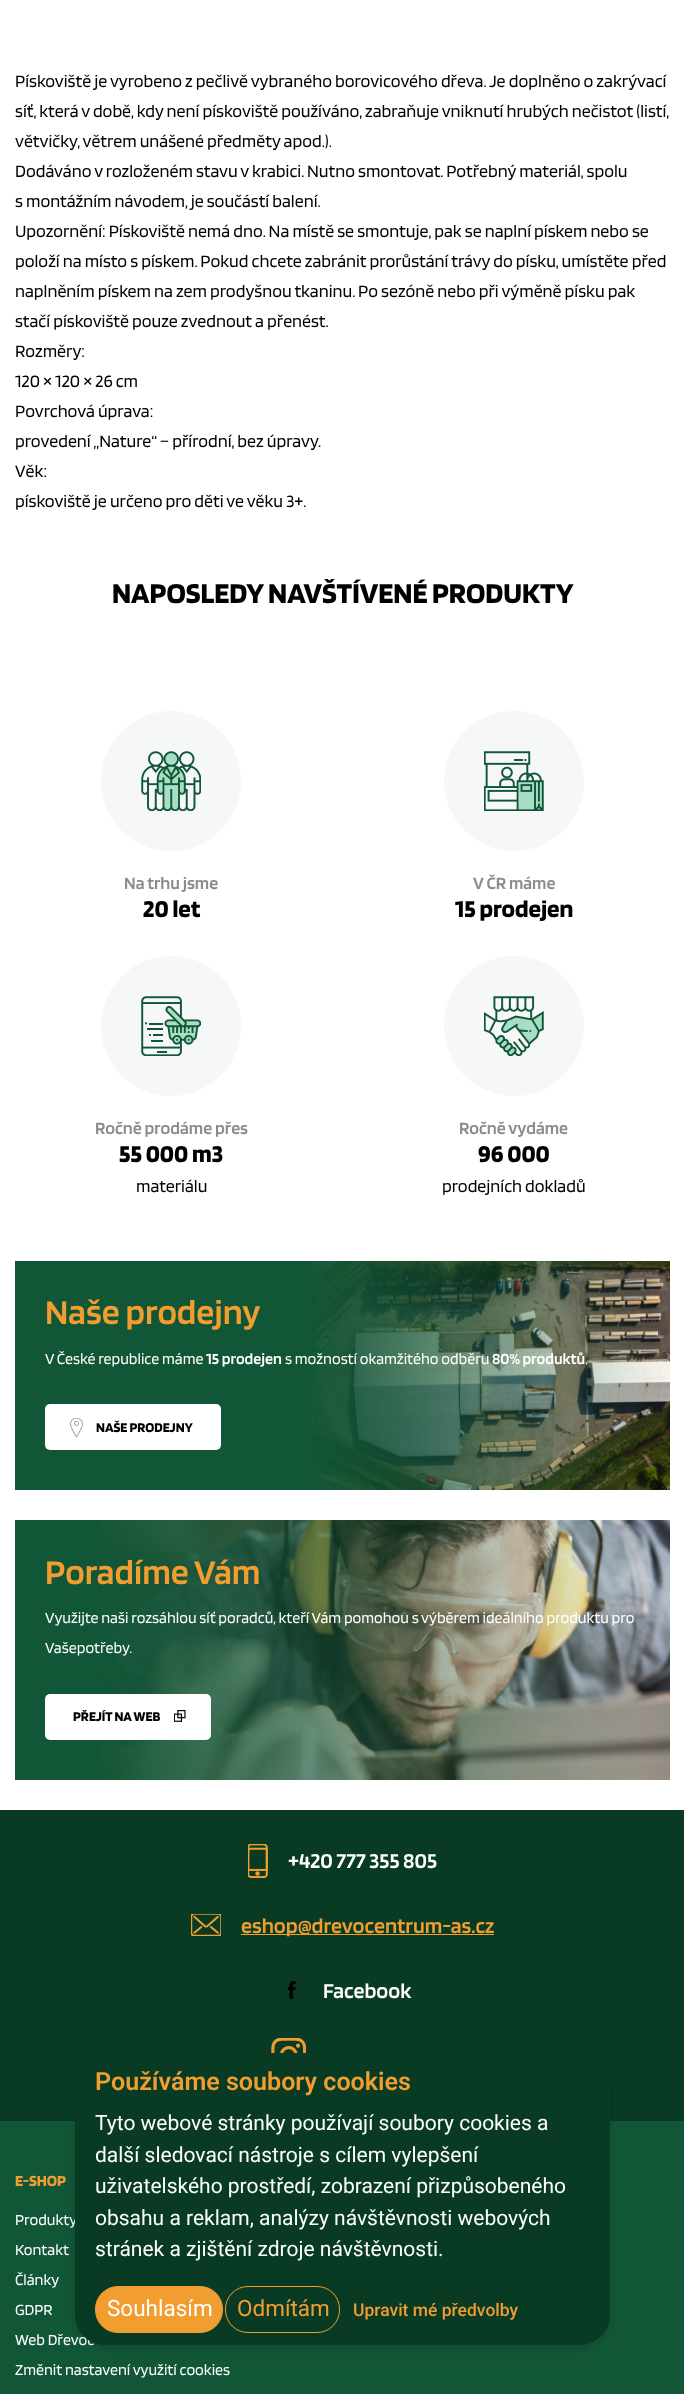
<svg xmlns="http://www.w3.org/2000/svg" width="684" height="2394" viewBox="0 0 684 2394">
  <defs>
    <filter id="blur1" x="-50%" y="-200%" width="200%" height="500%"><feGaussianBlur stdDeviation="7.5"/></filter>
  </defs>
  <rect width="100%" height="100%" fill="#ffffff"/>
  <text x="15" y="87" font-family="Blinker" font-size="18" fill="#000000">Pískoviště je vyrobeno z pečlivě vybraného borovicového dřeva. Je doplněno o zakrývací</text>
  <text x="15" y="117" font-family="Blinker" font-size="18" fill="#000000">síť, která v době, kdy není pískoviště používáno, zabraňuje vniknutí hrubých nečistot (listí,</text>
  <text x="15" y="147" font-family="Blinker" font-size="18" fill="#000000">větvičky, větrem unášené předměty apod.).</text>
  <text x="15" y="177" font-family="Blinker" font-size="18" fill="#000000">Dodáváno v rozloženém stavu v krabici. Nutno smontovat. Potřebný materiál, spolu</text>
  <text x="15" y="207" font-family="Blinker" font-size="18" fill="#000000">s montážním návodem, je součástí balení.</text>
  <text x="15" y="237" font-family="Blinker" font-size="18" fill="#000000">Upozornění: Pískoviště nemá dno. Na místě se smontuje, pak se naplní pískem nebo se</text>
  <text x="15" y="267" font-family="Blinker" font-size="18" fill="#000000">položí na místo s pískem. Pokud chcete zabránit prorůstání trávy do písku, umístěte před</text>
  <text x="15" y="297" font-family="Blinker" font-size="18" fill="#000000">naplněním pískem na zem prodyšnou tkaninu. Po sezóně nebo při výměně písku pak</text>
  <text x="15" y="327" font-family="Blinker" font-size="18" fill="#000000">stačí pískoviště pouze zvednout a přenést.</text>
  <text x="15" y="357" font-family="Blinker" font-size="18" fill="#000000">Rozměry:</text>
  <text x="15" y="387" font-family="Blinker" font-size="18" fill="#000000">120 × 120 × 26 cm</text>
  <text x="15" y="417" font-family="Blinker" font-size="18" fill="#000000">Povrchová úprava:</text>
  <text x="15" y="447" font-family="Blinker" font-size="18" fill="#000000">provedení „Nature“ – přírodní, bez úpravy.</text>
  <text x="15" y="477" font-family="Blinker" font-size="18" fill="#000000">Věk:</text>
  <text x="15" y="507" font-family="Blinker" font-size="18" fill="#000000">pískoviště je určeno pro děti ve věku 3+.</text>
  <text x="112" y="603" font-family="Blinker" font-size="30" font-weight="bold" fill="#000000">NAPOSLEDY NAVŠTÍVENÉ PRODUKTY</text>
  <circle cx="171" cy="781" r="70" fill="#f6f7f9"/>
  <image x="141" y="751" width="60" height="60" href="img1.png"/>
  <text x="124" y="889" font-family="Blinker" font-size="18" font-weight="600" fill="#8a8c90">Na trhu jsme</text>
  <text x="143" y="917" font-family="Blinker" font-size="25" font-weight="bold" fill="#000000">20 let</text>
  <circle cx="514" cy="781" r="70" fill="#f6f7f9"/>
  <image x="484" y="751" width="60" height="60" href="img2.png"/>
  <text x="473" y="889" font-family="Blinker" font-size="18" font-weight="600" fill="#8a8c90">V ČR máme</text>
  <text x="455" y="917" font-family="Blinker" font-size="25" font-weight="bold" fill="#000000">15 prodejen</text>
  <circle cx="171" cy="1026" r="70" fill="#f6f7f9"/>
  <image x="141" y="996" width="60" height="60" href="img3.png"/>
  <text x="95" y="1134" font-family="Blinker" font-size="18" font-weight="600" fill="#8a8c90">Ročně prodáme přes</text>
  <text x="119" y="1162" font-family="Blinker" font-size="25" font-weight="bold" fill="#000000">55 000 m3</text>
  <text x="136" y="1192" font-family="Blinker" font-size="18" fill="#000000">materiálu</text>
  <circle cx="514" cy="1026" r="70" fill="#f6f7f9"/>
  <image x="484" y="996" width="60" height="60" href="img4.png"/>
  <text x="459" y="1134" font-family="Blinker" font-size="18" font-weight="600" fill="#8a8c90">Ročně vydáme</text>
  <text x="478" y="1162" font-family="Blinker" font-size="25" font-weight="bold" fill="#000000">96 000</text>
  <text x="442" y="1192" font-family="Blinker" font-size="18" fill="#000000">prodejních dokladů</text>
  <rect x="15" y="1261" width="655" height="229" fill="#115737"/>
  <text x="45" y="1324" font-family="Blinker" font-size="36" font-weight="600" fill="#f19d2f">Naše prodejny</text>
  <image x="311" y="1261" width="359" height="229" href="img5.png"/>
  <text x="45" y="1364" font-family="Blinker" font-size="16" fill="#ffffff">V České republice máme</text>
  <text x="206" y="1364" font-family="Blinker" font-size="16" font-weight="600" fill="#ffffff">15 prodejen</text>
  <text x="285" y="1364" font-family="Blinker" font-size="16" fill="#ffffff">s možností okamžitého odběru</text>
  <text x="492" y="1364" font-family="Blinker" font-size="16" font-weight="600" fill="#ffffff">80% produktů</text>
  <text x="585" y="1364" font-family="Blinker" font-size="16" fill="#ffffff">.</text>
  <rect x="45" y="1404" width="176" height="46" rx="5" fill="#ffffff"/>
  <image x="70" y="1418" width="13" height="20" href="img6.png"/>
  <text x="96" y="1432" font-family="Blinker" font-size="14" font-weight="bold" fill="#000000">NAŠE PRODEJNY</text>
  <rect x="15" y="1520" width="85" height="260" fill="#115737"/>
  <image x="100" y="1520" width="570" height="260" href="img7.png"/>
  <text x="45" y="1584" font-family="Blinker" font-size="36" font-weight="600" fill="#f19d2f">Poradíme Vám</text>
  <text x="45" y="1623" font-family="Blinker" font-size="16" fill="#ffffff">Využijte naši rozsáhlou síť poradců, kteří Vám pomohou s výběrem ideálního produktu pro</text>
  <text x="45" y="1653" font-family="Blinker" font-size="16" fill="#ffffff">Vašepotřeby.</text>
  <rect x="45" y="1694" width="166" height="46" rx="5" fill="#ffffff"/>
  <text x="73" y="1721" font-family="Blinker" font-size="14" font-weight="bold" fill="#000000">PŘEJÍT NA WEB</text>
  <image x="174" y="1710" width="12" height="12" href="img8.png"/>
  <rect x="0" y="1810" width="684" height="311" fill="#093b24"/>
  <image x="248" y="1844" width="20" height="34" href="img9.png"/>
  <text x="288" y="1868" font-family="Blinker" font-size="22" font-weight="600" fill="#ffffff">+420 777 355 805</text>
  <image x="191" y="1914" width="30" height="22" href="img10.png"/>
  <rect x="241" y="1934" width="253" height="1" fill="#f19d2f"/>
  <text x="241" y="1933" font-family="Blinker" font-size="22" font-weight="600" fill="#f19d2f">eshop@drevocentrum-as.cz</text>
  <image x="287" y="1981" width="9" height="18" href="img11.png"/>
  <text x="323" y="1998" font-family="Blinker" font-size="22" font-weight="600" fill="#ffffff">Facebook</text>
  <image x="271" y="2038" width="35" height="15" href="img12.png"/>
  <rect x="0" y="2121" width="684" height="273" fill="#115737"/>
  <text x="15" y="2186" font-family="Blinker" font-size="16" font-weight="bold" fill="#f19d2f">E-SHOP</text>
  <text x="15" y="2225" font-family="Blinker" font-size="16" fill="#ffffff">Produkty</text>
  <text x="15" y="2255" font-family="Blinker" font-size="16" fill="#ffffff">Kontakt</text>
  <text x="15" y="2285" font-family="Blinker" font-size="16" fill="#ffffff">Články</text>
  <text x="15" y="2315" font-family="Blinker" font-size="16" fill="#ffffff">GDPR</text>
  <text x="15" y="2345" font-family="Blinker" font-size="16" fill="#ffffff">Web Dřevoc</text>
  <text x="15" y="2375" font-family="Blinker" font-size="16" fill="#ffffff">Změnit nastavení využití cookies</text>
  <rect x="79" y="2059" width="527" height="285" rx="26" fill="#000000" fill-opacity="0.2" filter="url(#blur1)"/>
  <rect x="75" y="2053" width="535" height="292" rx="30" fill="#093b24"/>
  <text x="95" y="2090" font-family="Roboto" font-size="25.1" font-weight="600" fill="#f19d2f">Používáme soubory cookies</text>
  <text x="95" y="2130" font-family="Roboto" font-size="21" fill="#ffffff">Tyto webové stránky používají soubory cookies a</text>
  <text x="95" y="2162" font-family="Roboto" font-size="21" fill="#ffffff">další sledovací nástroje s cílem vylepšení</text>
  <text x="95" y="2193" font-family="Roboto" font-size="21" fill="#ffffff">uživatelského prostředí, zobrazení přizpůsobeného</text>
  <text x="95" y="2225" font-family="Roboto" font-size="21" fill="#ffffff">obsahu a</text>
  <text x="186" y="2225" font-family="Roboto" font-size="21" fill="#ffffff">reklam, analýzy návštěvnosti webových</text>
  <text x="95" y="2256" font-family="Roboto" font-size="21" fill="#ffffff">stránek a zjištění zdroje návštěvnosti.</text>
  <rect x="95.5" y="2286.5" width="127" height="46" rx="22.5" fill="#f19d2f" stroke="#f19d2f"/>
  <text x="107" y="2316" font-family="Roboto" font-size="22.5" fill="#ffffff">Souhlasím</text>
  <rect x="225.5" y="2286.5" width="114" height="46" rx="22.5" fill="none" stroke="#f19d2f"/>
  <text x="237" y="2316" font-family="Roboto" font-size="22.5" fill="#f19d2f">Odmítám</text>
  <text x="353" y="2316" font-family="Roboto" font-size="17.5" font-weight="500" fill="#f19d2f">Upravit mé předvolby</text>
</svg>
